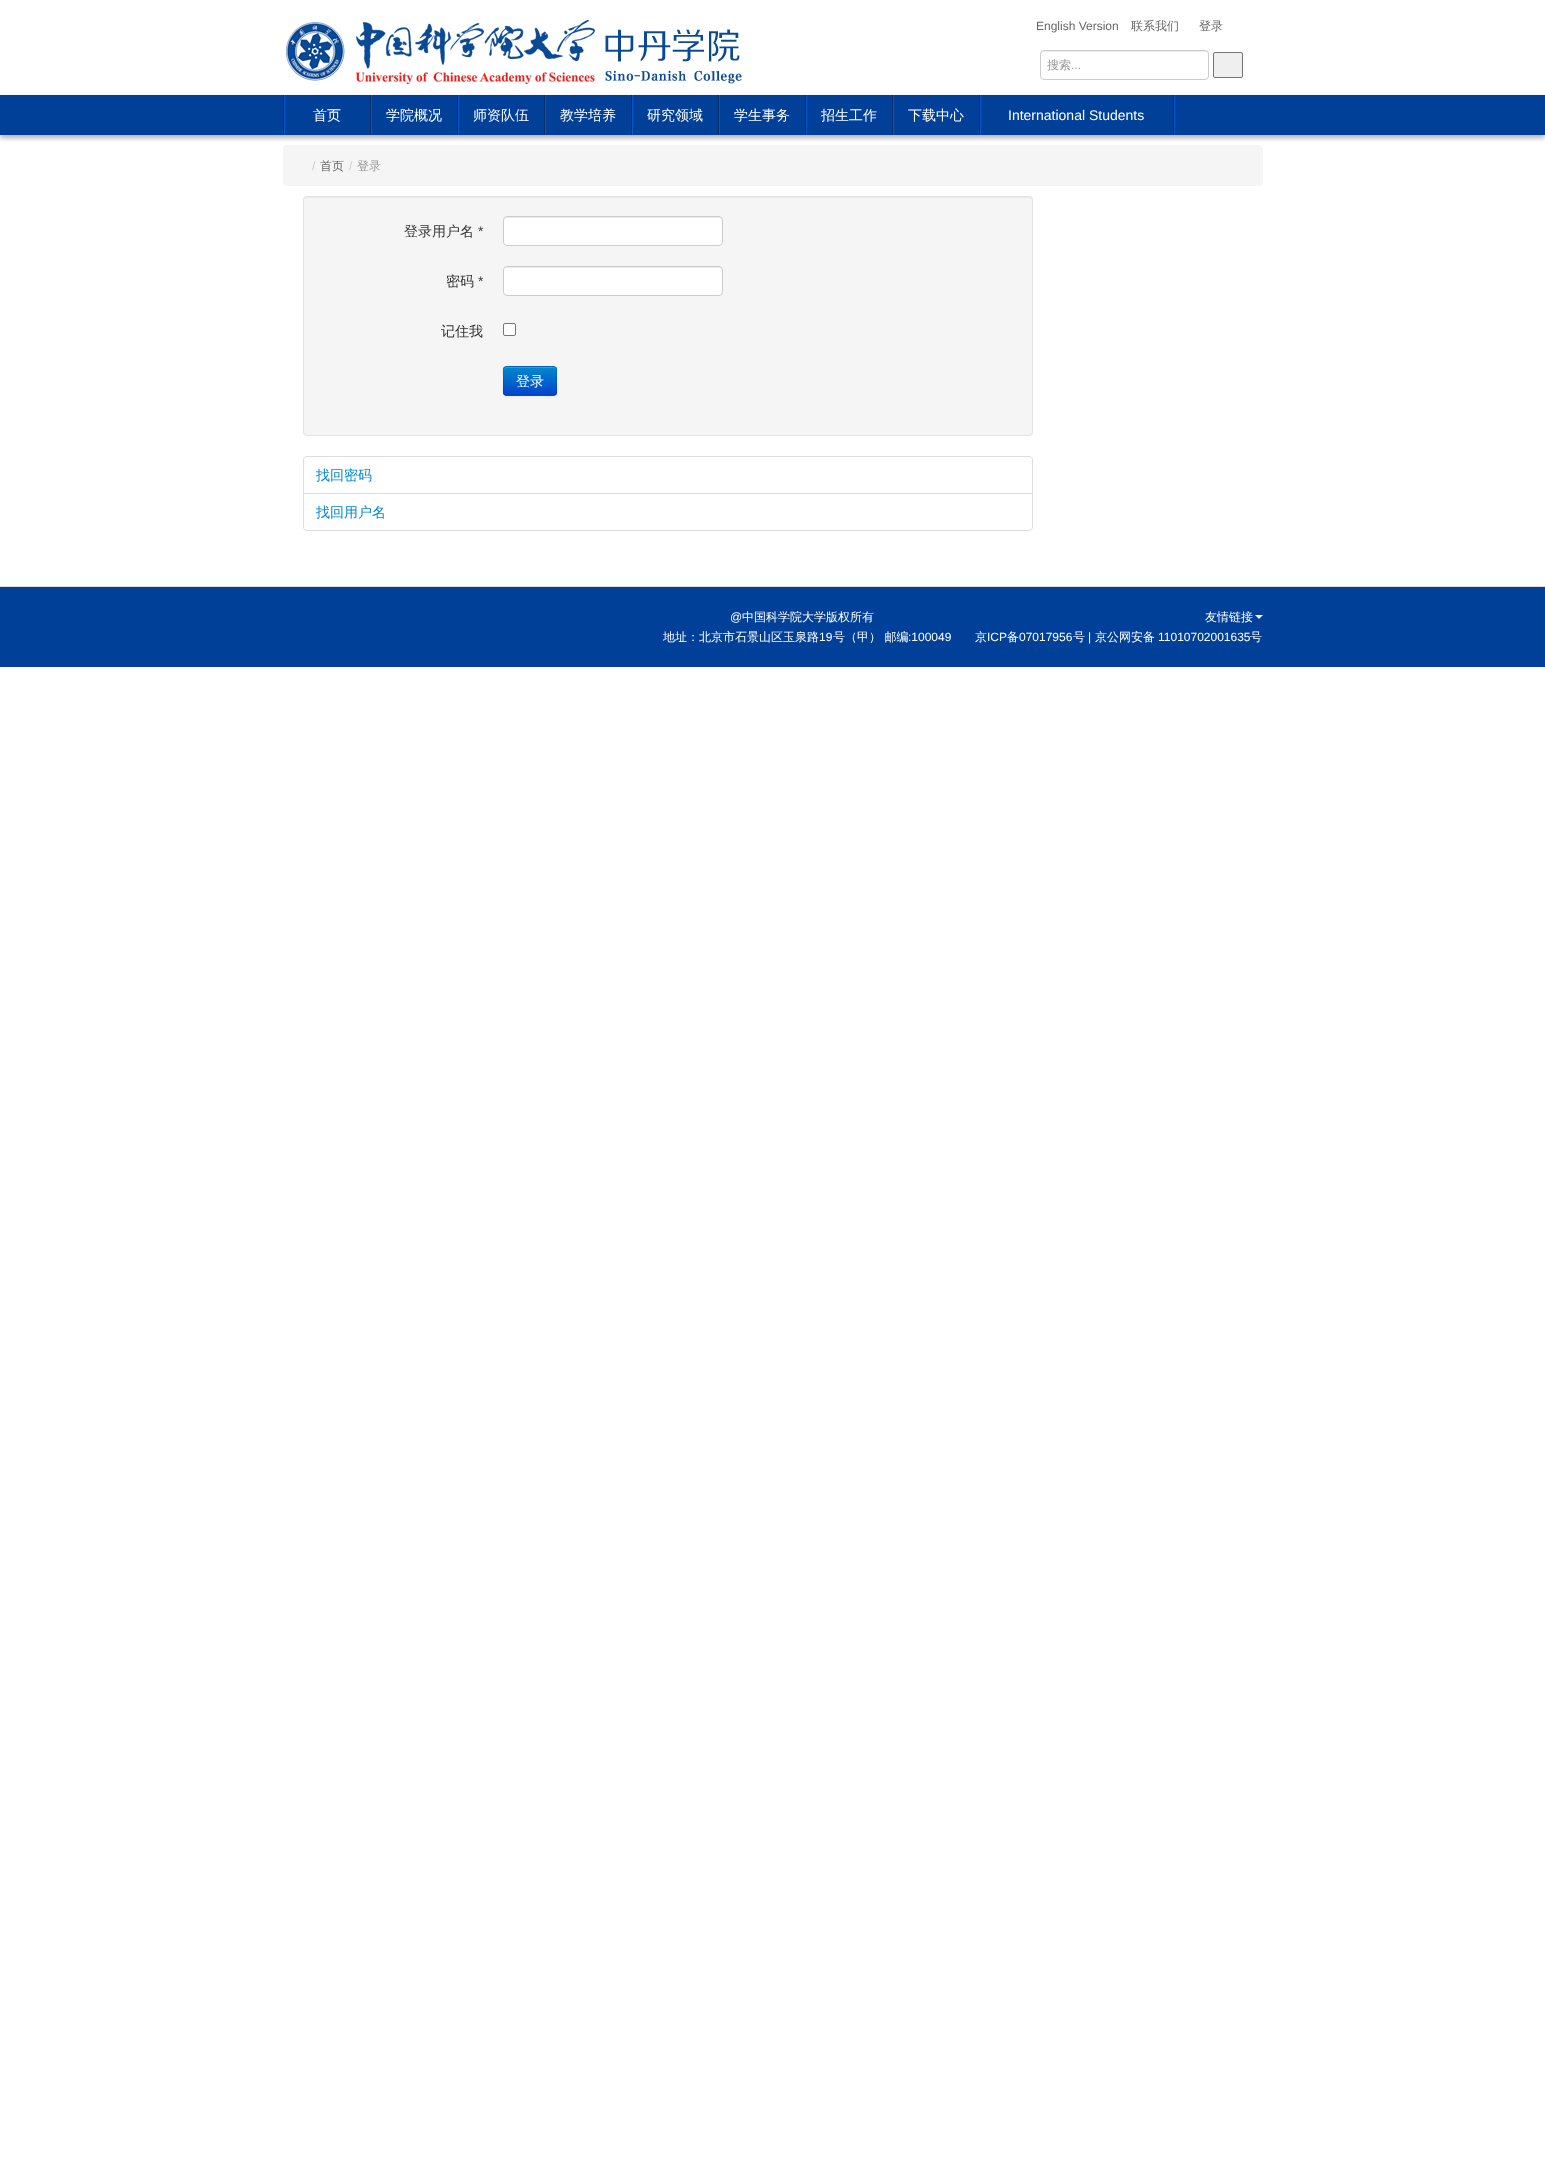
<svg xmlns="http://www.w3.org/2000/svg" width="1545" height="2164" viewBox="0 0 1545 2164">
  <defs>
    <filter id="blur1" x="-50%" y="-200%" width="200%" height="500%"><feGaussianBlur stdDeviation="2.5"/></filter>
    <filter id="blur2" x="-50%" y="-200%" width="200%" height="500%"><feGaussianBlur stdDeviation="1"/></filter>
    <clipPath id="clip1"><rect x="503" y="366" width="54" height="30" rx="4"/></clipPath>
    <linearGradient id="g1" gradientUnits="userSpaceOnUse" x1="530" y1="367" x2="530" y2="395"><stop offset="0" stop-color="#0088cc"/><stop offset="1" stop-color="#0044cc"/></linearGradient>
  </defs>
  <rect width="100%" height="100%" fill="#ffffff"/>
  <image x="286" y="20" width="309" height="64" href="img1.png"/>
  <image x="605" y="29" width="137" height="55" href="img2.png"/>
  <text x="1036" y="30" font-family="Liberation Sans" font-size="12" fill="#666666">English Version</text>
  <text x="1131" y="30" font-family="WenQuanYi Zen Hei" font-size="12" font-weight="500" fill="#666666">联系我们</text>
  <text x="1199" y="30" font-family="WenQuanYi Zen Hei" font-size="12" font-weight="500" fill="#666666">登录</text>
  <path d="M1044 52H1205C1207 52 1208 53 1208 55V54C1208 52 1207 51 1205 51H1044C1042 51 1041 52 1041 54V55C1041 53 1042 52 1044 52Z" fill="#ececec"/>
  <rect x="1040.5" y="50.5" width="168" height="29" rx="3.5" fill="none" stroke="#cccccc"/>
  <text x="1047" y="69" font-family="WenQuanYi Zen Hei" font-size="12" font-weight="500" fill="#999999">搜索</text>
  <text x="1071" y="69" font-family="Liberation Sans" font-size="12" fill="#999999">...</text>
  <rect x="1213.5" y="52.5" width="29" height="25" rx="1.5" fill="#efefef" stroke="#767676"/>
  <rect x="0" y="98" width="1545" height="40" fill="#000000" fill-opacity="0.3" filter="url(#blur1)"/>
  <rect x="0" y="95" width="1545" height="40" fill="#004098"/>
  <rect x="283" y="95" width="1" height="40" fill="#002b66"/>
  <rect x="370" y="95" width="1" height="40" fill="#002b66"/>
  <rect x="284" y="95" width="1" height="40" fill="#0058d0"/>
  <text x="313" y="120" font-family="WenQuanYi Zen Hei" font-size="14" font-weight="500" fill="#ffffff">首页</text>
  <rect x="457" y="95" width="1" height="40" fill="#002b66"/>
  <rect x="371" y="95" width="1" height="40" fill="#0058d0"/>
  <text x="386" y="120" font-family="WenQuanYi Zen Hei" font-size="14" font-weight="500" fill="#ffffff">学院概况</text>
  <rect x="544" y="95" width="1" height="40" fill="#002b66"/>
  <rect x="458" y="95" width="1" height="40" fill="#0058d0"/>
  <text x="473" y="120" font-family="WenQuanYi Zen Hei" font-size="14" font-weight="500" fill="#ffffff">师资队伍</text>
  <rect x="631" y="95" width="1" height="40" fill="#002b66"/>
  <rect x="545" y="95" width="1" height="40" fill="#0058d0"/>
  <text x="560" y="120" font-family="WenQuanYi Zen Hei" font-size="14" font-weight="500" fill="#ffffff">教学培养</text>
  <rect x="718" y="95" width="1" height="40" fill="#002b66"/>
  <rect x="632" y="95" width="1" height="40" fill="#0058d0"/>
  <text x="647" y="120" font-family="WenQuanYi Zen Hei" font-size="14" font-weight="500" fill="#ffffff">研究领域</text>
  <rect x="805" y="95" width="1" height="40" fill="#002b66"/>
  <rect x="719" y="95" width="1" height="40" fill="#0058d0"/>
  <text x="734" y="120" font-family="WenQuanYi Zen Hei" font-size="14" font-weight="500" fill="#ffffff">学生事务</text>
  <rect x="892" y="95" width="1" height="40" fill="#002b66"/>
  <rect x="806" y="95" width="1" height="40" fill="#0058d0"/>
  <text x="821" y="120" font-family="WenQuanYi Zen Hei" font-size="14" font-weight="500" fill="#ffffff">招生工作</text>
  <rect x="979" y="95" width="1" height="40" fill="#002b66"/>
  <rect x="893" y="95" width="1" height="40" fill="#0058d0"/>
  <text x="908" y="120" font-family="WenQuanYi Zen Hei" font-size="14" font-weight="500" fill="#ffffff">下载中心</text>
  <rect x="1174" y="95" width="1" height="40" fill="#0058d0"/>
  <rect x="1173" y="95" width="1" height="40" fill="#002b66"/>
  <rect x="980" y="95" width="1" height="40" fill="#0058d0"/>
  <text x="1008" y="120" font-family="Liberation Sans" font-size="14" fill="#ffffff">International Students</text>
  <rect x="283" y="145" width="980" height="41" rx="4" fill="#f5f5f5"/>
  <text x="312" y="170" font-family="Liberation Sans" font-size="12" fill="#cccccc">/</text>
  <text x="320" y="170" font-family="WenQuanYi Zen Hei" font-size="12" font-weight="500" fill="#666666">首页</text>
  <text x="349" y="170" font-family="Liberation Sans" font-size="12" fill="#cccccc">/</text>
  <text x="357" y="170" font-family="WenQuanYi Zen Hei" font-size="12" font-weight="500" fill="#999999">登录</text>
  <rect x="303" y="196" width="730" height="240" rx="4" fill="#f5f5f5"/>
  <path d="M307 198H1029C1031 198 1032 199 1032 201C1032 199 1031 197 1029 197H307C305 197 304 199 304 201C304 199 305 198 307 198Z" fill="#e9e9e9"/>
  <rect x="303.5" y="196.5" width="729" height="239" rx="3.5" fill="none" stroke="#e3e3e3"/>
  <text x="404" y="236" font-family="WenQuanYi Zen Hei" font-size="14" font-weight="500" fill="#333333">登录用户名</text>
  <text x="478" y="236" font-family="Liberation Sans" font-size="14" fill="#333333">*</text>
  <rect x="503" y="216" width="220" height="30" rx="4" fill="#ffffff"/>
  <path d="M507 218H719C721 218 722 219 722 221V220C722 218 721 217 719 217H507C505 217 504 218 504 220V221C504 219 505 218 507 218Z" fill="#ececec"/>
  <rect x="503.5" y="216.5" width="219" height="29" rx="3.5" fill="none" stroke="#cccccc"/>
  <text x="446" y="286" font-family="WenQuanYi Zen Hei" font-size="14" font-weight="500" fill="#333333">密码</text>
  <text x="478" y="286" font-family="Liberation Sans" font-size="14" fill="#333333">*</text>
  <rect x="503" y="266" width="220" height="30" rx="4" fill="#ffffff"/>
  <path d="M507 268H719C721 268 722 269 722 271V270C722 268 721 267 719 267H507C505 267 504 268 504 270V271C504 269 505 268 507 268Z" fill="#ececec"/>
  <rect x="503.5" y="266.5" width="219" height="29" rx="3.5" fill="none" stroke="#cccccc"/>
  <text x="441" y="336" font-family="WenQuanYi Zen Hei" font-size="14" font-weight="500" fill="#333333">记住我</text>
  <rect x="503.5" y="323.5" width="12" height="12" rx="1.5" fill="#ffffff" stroke="#767676"/>
  <rect x="503" y="367" width="54" height="30" rx="4" fill="#000000" fill-opacity="0.05" filter="url(#blur2)"/>
  <rect x="503" y="366" width="54" height="30" rx="4" fill="#006dcc"/>
  <g clip-path="url(#clip1)">
    <rect x="503" y="367" width="54" height="28" fill="url(#g1)"/>
  </g>
  <path d="M507 368H553C555 368 556 369 556 371C556 365 550 367 545 367H515C510 367 504 365 504 371C504 369 505 368 507 368Z" fill="#339fd6"/>
  <path d="M555.5 394.5C555 395 554 395.5 553 395.5H507C506 395.5 505 395 504.5 394.5" fill="none" stroke="#000000" stroke-opacity="0.25"/>
  <path d="M504.5 394.5C502.5 392.5 503.5 384 503.5 381C503.5 366.5 500.5 366.5 514.5 366.5H545.5C559.5 366.5 556.5 366.5 556.5 381C556.5 384 557.5 392.5 555.5 394.5" fill="none" stroke="#000000" stroke-opacity="0.1"/>
  <text x="516" y="386" font-family="WenQuanYi Zen Hei" font-size="14" font-weight="500" fill="#ffffff">登录</text>
  <path d="M307 456.5H1029C1031 456.5 1032.5 458 1032.5 460V493.5H303.5V460C303.5 458 305 456.5 307 456.5Z" fill="none" stroke="#dddddd"/>
  <text x="316" y="480" font-family="WenQuanYi Zen Hei" font-size="14" font-weight="500" fill="#0088cc">找回密码</text>
  <path d="M303.5 493.5H1032.5V527C1032.5 529 1031 530.5 1029 530.5H307C305 530.5 303.5 529 303.5 527Z" fill="none" stroke="#dddddd"/>
  <text x="316" y="517" font-family="WenQuanYi Zen Hei" font-size="14" font-weight="500" fill="#0088cc">找回用户名</text>
  <rect x="0" y="587" width="1545" height="80" fill="#004098"/>
  <rect x="0" y="586" width="1545" height="1" fill="#dddddd"/>
  <text x="730" y="621" font-family="Liberation Sans" font-size="12" fill="#ffffff">@</text>
  <text x="742" y="621" font-family="WenQuanYi Zen Hei" font-size="12" font-weight="500" fill="#ffffff">中国科学院大学版权所有</text>
  <text x="663" y="641" font-family="WenQuanYi Zen Hei" font-size="12" font-weight="500" fill="#ffffff">地址：北京市石景山区玉泉路</text>
  <text x="819" y="641" font-family="Liberation Sans" font-size="12" fill="#ffffff">19</text>
  <text x="833" y="641" font-family="WenQuanYi Zen Hei" font-size="12" font-weight="500" fill="#ffffff">号（甲） 邮编</text>
  <text x="908" y="641" font-family="Liberation Sans" font-size="12" fill="#ffffff">:100049</text>
  <text x="975" y="641" font-family="WenQuanYi Zen Hei" font-size="12" font-weight="500" fill="#ffffff">京</text>
  <text x="987" y="641" font-family="Liberation Sans" font-size="12" fill="#ffffff">ICP</text>
  <text x="1007" y="641" font-family="WenQuanYi Zen Hei" font-size="12" font-weight="500" fill="#ffffff">备</text>
  <text x="1019" y="641" font-family="Liberation Sans" font-size="12" fill="#ffffff">07017956</text>
  <text x="1073" y="641" font-family="WenQuanYi Zen Hei" font-size="12" font-weight="500" fill="#ffffff">号</text>
  <text x="1088" y="641" font-family="Liberation Sans" font-size="12" fill="#ffffff">|</text>
  <text x="1095" y="641" font-family="WenQuanYi Zen Hei" font-size="12" font-weight="500" fill="#ffffff">京公网安备</text>
  <text x="1158" y="641" font-family="Liberation Sans" font-size="12" fill="#ffffff">11010702001635</text>
  <text x="1250" y="641" font-family="WenQuanYi Zen Hei" font-size="12" font-weight="500" fill="#ffffff">号</text>
  <text x="1205" y="621" font-family="WenQuanYi Zen Hei" font-size="12" font-weight="500" fill="#ffffff">友情链接</text>
  <path d="M1255 615H1263L1259 619Z" fill="#ffffff"/>
</svg>
